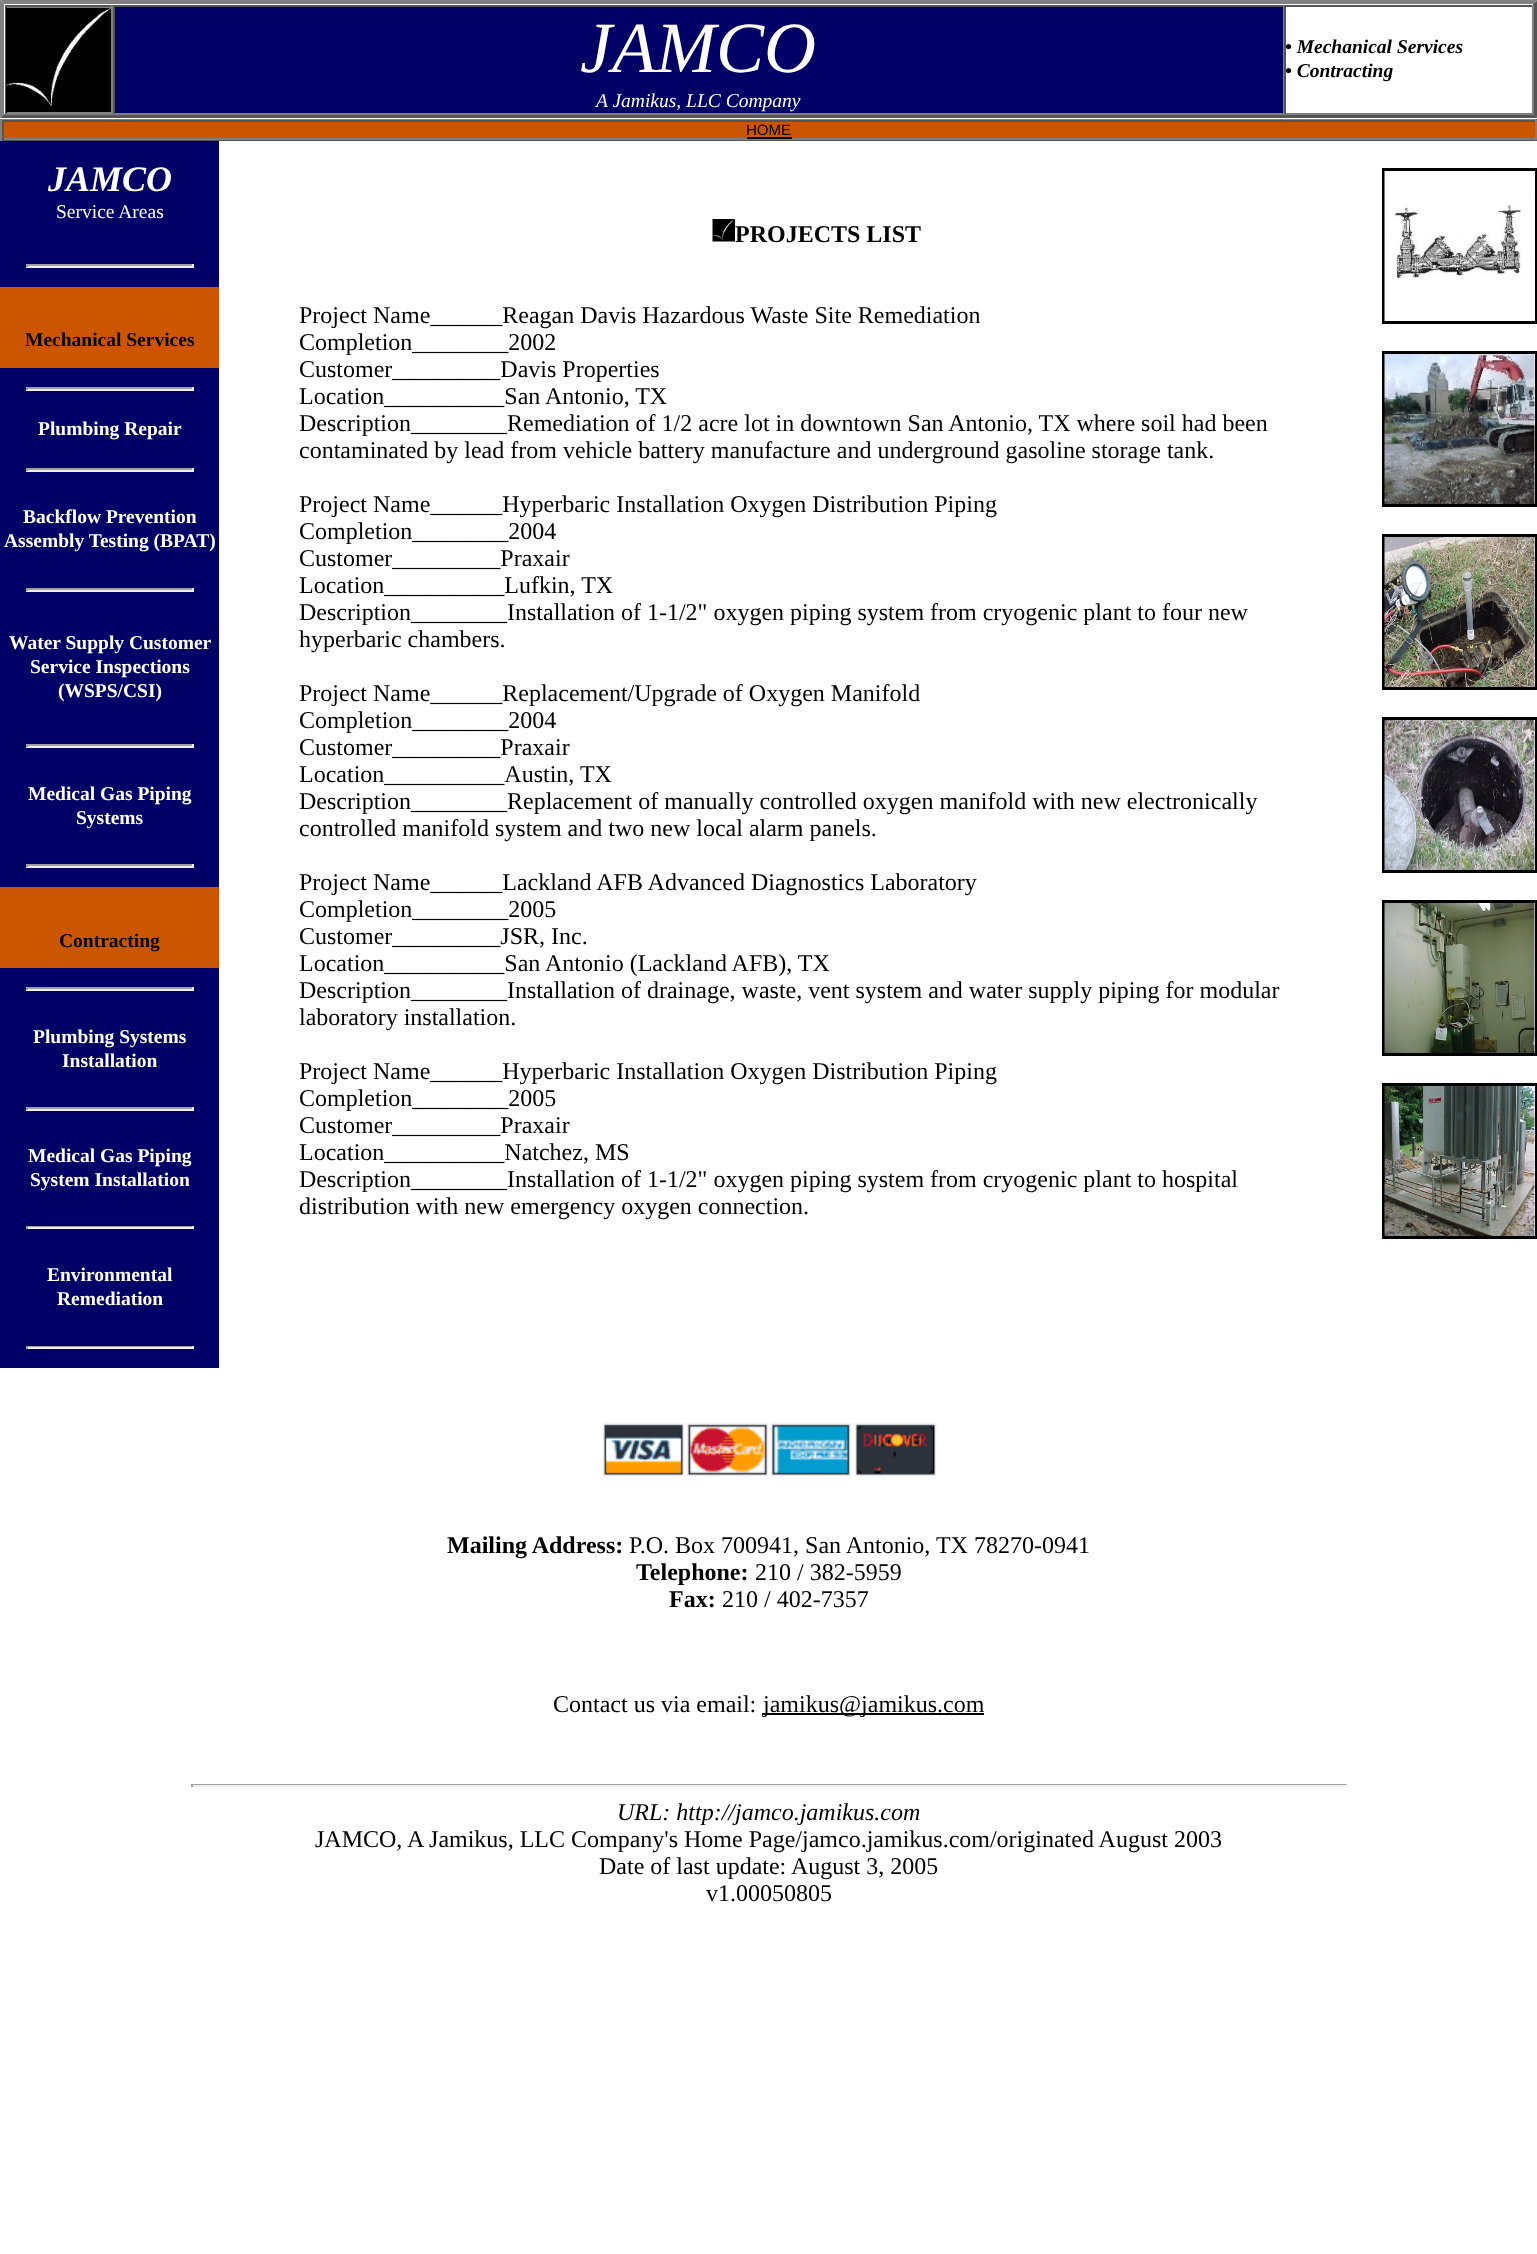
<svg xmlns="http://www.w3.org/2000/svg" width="1537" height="2254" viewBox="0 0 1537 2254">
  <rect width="100%" height="100%" fill="#ffffff"/>
  <path d="M0 0H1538L1533 4H4Z" fill="#808080"/>
  <path d="M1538 0V118L1533 114V4Z" fill="#555555"/>
  <path d="M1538 118H0L4 114H1533Z" fill="#555555"/>
  <path d="M0 118V0L4 4V114Z" fill="#808080"/>
  <rect x="5" y="5" width="1528" height="2" fill="#555555"/>
  <rect x="111" y="5" width="2" height="109" fill="#808080"/>
  <rect x="5" y="113" width="108" height="2" fill="#808080"/>
  <rect x="5" y="5" width="2" height="109" fill="#555555"/>
  <image x="6" y="7" width="105" height="106" href="img1.png"/>
  <rect x="115" y="7" width="1168" height="106" fill="#000066"/>
  <rect x="1283" y="5" width="1" height="109" fill="#808080"/>
  <rect x="113" y="113" width="1171" height="2" fill="#808080"/>
  <rect x="113" y="5" width="2" height="109" fill="#555555"/>
  <text x="580" y="72" font-family="Liberation Serif" font-size="72" font-style="italic" fill="#ffffff">JAMCO</text>
  <text x="596" y="107" font-family="Liberation Serif" font-size="19.5" font-style="italic" fill="#ffffff">A Jamikus, LLC Company</text>
  <rect x="1532" y="5" width="2" height="109" fill="#808080"/>
  <rect x="1284" y="113" width="249" height="2" fill="#808080"/>
  <rect x="1284" y="5" width="2" height="109" fill="#555555"/>
  <text x="1285" y="53" font-family="Liberation Serif" font-size="19.5" font-weight="bold" font-style="italic" fill="#000000">• Mechanical Services</text>
  <text x="1285" y="77" font-family="Liberation Serif" font-size="19.5" font-weight="bold" font-style="italic" fill="#000000">• Contracting</text>
  <rect x="4" y="122" width="1531" height="16" fill="#cc5500"/>
  <rect x="0" y="119" width="1537" height="1" fill="#808080"/>
  <rect x="1536" y="119" width="1" height="1" fill="#555555"/>
  <rect x="0" y="140" width="1537" height="1" fill="#555555"/>
  <rect x="0" y="119" width="2" height="22" fill="#808080"/>
  <rect x="2" y="120" width="1534" height="2" fill="#555555"/>
  <rect x="1535" y="120" width="2" height="20" fill="#808080"/>
  <rect x="2" y="138" width="1534" height="2" fill="#808080"/>
  <rect x="2" y="120" width="2" height="20" fill="#555555"/>
  <text x="746" y="135" font-family="Liberation Sans" font-size="15" fill="#000000">HOME</text>
  <rect x="747" y="137" width="45" height="2" fill="#000000"/>
  <rect x="0" y="141" width="219" height="1227" fill="#000066"/>
  <text x="48" y="191" font-family="Liberation Serif" font-size="36" font-weight="bold" font-style="italic" fill="#ffffff">JAMCO</text>
  <text x="56" y="218" font-family="Liberation Serif" font-size="19.5" fill="#ffffff">Service Areas</text>
  <image x="712" y="219" width="23" height="23" href="img2.png"/>
  <text x="735" y="242" font-family="Liberation Serif" font-size="24" font-weight="bold" fill="#000000">PROJECTS LIST</text>
  <text x="299" y="323" font-family="Liberation Serif" font-size="24" fill="#000000">Project Name______Reagan Davis Hazardous Waste Site Remediation</text>
  <text x="299" y="350" font-family="Liberation Serif" font-size="24" fill="#000000">Completion________2002</text>
  <text x="299" y="377" font-family="Liberation Serif" font-size="24" fill="#000000">Customer_________Davis Properties</text>
  <text x="299" y="404" font-family="Liberation Serif" font-size="24" fill="#000000">Location__________San Antonio, TX</text>
  <text x="299" y="431" font-family="Liberation Serif" font-size="24" fill="#000000">Description________Remediation of 1/2 acre lot in downtown San Antonio, TX where soil had been</text>
  <text x="299" y="458" font-family="Liberation Serif" font-size="24" fill="#000000">contaminated by lead from vehicle battery manufacture and underground gasoline storage tank.</text>
  <text x="299" y="512" font-family="Liberation Serif" font-size="24" fill="#000000">Project Name______Hyperbaric Installation Oxygen Distribution Piping</text>
  <text x="299" y="539" font-family="Liberation Serif" font-size="24" fill="#000000">Completion________2004</text>
  <text x="299" y="566" font-family="Liberation Serif" font-size="24" fill="#000000">Customer_________Praxair</text>
  <text x="299" y="593" font-family="Liberation Serif" font-size="24" fill="#000000">Location__________Lufkin, TX</text>
  <text x="299" y="620" font-family="Liberation Serif" font-size="24" fill="#000000">Description________Installation of 1-1/2" oxygen piping system from cryogenic plant to four new</text>
  <text x="299" y="647" font-family="Liberation Serif" font-size="24" fill="#000000">hyperbaric chambers.</text>
  <text x="299" y="701" font-family="Liberation Serif" font-size="24" fill="#000000">Project Name______Replacement/Upgrade of Oxygen Manifold</text>
  <text x="299" y="728" font-family="Liberation Serif" font-size="24" fill="#000000">Completion________2004</text>
  <text x="299" y="755" font-family="Liberation Serif" font-size="24" fill="#000000">Customer_________Praxair</text>
  <text x="299" y="782" font-family="Liberation Serif" font-size="24" fill="#000000">Location__________Austin, TX</text>
  <text x="299" y="809" font-family="Liberation Serif" font-size="24" fill="#000000">Description________Replacement of manually controlled oxygen manifold with new electronically</text>
  <text x="299" y="836" font-family="Liberation Serif" font-size="24" fill="#000000">controlled manifold system and two new local alarm panels.</text>
  <text x="299" y="890" font-family="Liberation Serif" font-size="24" fill="#000000">Project Name______Lackland AFB Advanced Diagnostics Laboratory</text>
  <text x="299" y="917" font-family="Liberation Serif" font-size="24" fill="#000000">Completion________2005</text>
  <text x="299" y="944" font-family="Liberation Serif" font-size="24" fill="#000000">Customer_________JSR, Inc.</text>
  <text x="299" y="971" font-family="Liberation Serif" font-size="24" fill="#000000">Location__________San Antonio (Lackland AFB), TX</text>
  <text x="299" y="998" font-family="Liberation Serif" font-size="24" fill="#000000">Description________Installation of drainage, waste, vent system and water supply piping for modular</text>
  <text x="299" y="1025" font-family="Liberation Serif" font-size="24" fill="#000000">laboratory installation.</text>
  <text x="299" y="1079" font-family="Liberation Serif" font-size="24" fill="#000000">Project Name______Hyperbaric Installation Oxygen Distribution Piping</text>
  <text x="299" y="1106" font-family="Liberation Serif" font-size="24" fill="#000000">Completion________2005</text>
  <text x="299" y="1133" font-family="Liberation Serif" font-size="24" fill="#000000">Customer_________Praxair</text>
  <text x="299" y="1160" font-family="Liberation Serif" font-size="24" fill="#000000">Location__________Natchez, MS</text>
  <text x="299" y="1187" font-family="Liberation Serif" font-size="24" fill="#000000">Description________Installation of 1-1/2" oxygen piping system from cryogenic plant to hospital</text>
  <text x="299" y="1214" font-family="Liberation Serif" font-size="24" fill="#000000">distribution with new emergency oxygen connection.</text>
  <rect x="1383.5" y="169.5" width="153" height="153" fill="none" stroke="#000000" stroke-width="3"/>
  <image x="1384" y="171" width="151" height="150" href="img3.png"/>
  <rect x="1383.5" y="352.5" width="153" height="153" fill="none" stroke="#000000" stroke-width="3"/>
  <image x="1384" y="354" width="151" height="150" href="img4.png"/>
  <rect x="1383.5" y="535.5" width="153" height="153" fill="none" stroke="#000000" stroke-width="3"/>
  <image x="1384" y="537" width="151" height="150" href="img5.png"/>
  <rect x="1383.5" y="718.5" width="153" height="153" fill="none" stroke="#000000" stroke-width="3"/>
  <image x="1384" y="720" width="151" height="150" href="img6.png"/>
  <rect x="1383.5" y="901.5" width="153" height="153" fill="none" stroke="#000000" stroke-width="3"/>
  <image x="1384" y="903" width="151" height="150" href="img7.png"/>
  <rect x="1383.5" y="1084.5" width="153" height="153" fill="none" stroke="#000000" stroke-width="3"/>
  <image x="1384" y="1086" width="151" height="150" href="img8.png"/>
  <rect x="26" y="264" width="168" height="2" fill="#9f9f9f"/>
  <rect x="192" y="264" width="2" height="3" fill="#eeeeee"/>
  <rect x="26" y="266" width="168" height="2" fill="#eeeeee"/>
  <rect x="26" y="264" width="2" height="3" fill="#9f9f9f"/>
  <rect x="0" y="287" width="219" height="81" fill="#cc5500"/>
  <text x="25" y="346" font-family="Liberation Serif" font-size="19.5" font-weight="bold" fill="#000000">Mechanical Services</text>
  <rect x="26" y="387" width="168" height="2" fill="#9f9f9f"/>
  <rect x="192" y="387" width="2" height="3" fill="#eeeeee"/>
  <rect x="26" y="389" width="168" height="2" fill="#eeeeee"/>
  <rect x="26" y="387" width="2" height="3" fill="#9f9f9f"/>
  <text x="38" y="435" font-family="Liberation Serif" font-size="19.5" font-weight="bold" fill="#ffffff">Plumbing Repair</text>
  <rect x="26" y="468" width="168" height="2" fill="#9f9f9f"/>
  <rect x="192" y="468" width="2" height="3" fill="#eeeeee"/>
  <rect x="26" y="470" width="168" height="2" fill="#eeeeee"/>
  <rect x="26" y="468" width="2" height="3" fill="#9f9f9f"/>
  <text x="23" y="523" font-family="Liberation Serif" font-size="19.5" font-weight="bold" fill="#ffffff">Backflow Prevention</text>
  <text x="4" y="547" font-family="Liberation Serif" font-size="19.5" font-weight="bold" fill="#ffffff">Assembly Testing (BPAT)</text>
  <rect x="26" y="588" width="168" height="2" fill="#9f9f9f"/>
  <rect x="192" y="588" width="2" height="3" fill="#eeeeee"/>
  <rect x="26" y="590" width="168" height="2" fill="#eeeeee"/>
  <rect x="26" y="588" width="2" height="3" fill="#9f9f9f"/>
  <text x="9" y="649" font-family="Liberation Serif" font-size="19.5" font-weight="bold" fill="#ffffff">Water Supply Customer</text>
  <text x="30" y="673" font-family="Liberation Serif" font-size="19.5" font-weight="bold" fill="#ffffff">Service Inspections</text>
  <text x="58" y="697" font-family="Liberation Serif" font-size="19.5" font-weight="bold" fill="#ffffff">(WSPS/CSI)</text>
  <rect x="26" y="744" width="168" height="2" fill="#9f9f9f"/>
  <rect x="192" y="744" width="2" height="3" fill="#eeeeee"/>
  <rect x="26" y="746" width="168" height="2" fill="#eeeeee"/>
  <rect x="26" y="744" width="2" height="3" fill="#9f9f9f"/>
  <text x="28" y="800" font-family="Liberation Serif" font-size="19.5" font-weight="bold" fill="#ffffff">Medical Gas Piping</text>
  <text x="76" y="824" font-family="Liberation Serif" font-size="19.5" font-weight="bold" fill="#ffffff">Systems</text>
  <rect x="26" y="864" width="168" height="2" fill="#9f9f9f"/>
  <rect x="192" y="864" width="2" height="3" fill="#eeeeee"/>
  <rect x="26" y="866" width="168" height="2" fill="#eeeeee"/>
  <rect x="26" y="864" width="2" height="3" fill="#9f9f9f"/>
  <rect x="0" y="887" width="219" height="81" fill="#cc5500"/>
  <text x="59" y="947" font-family="Liberation Serif" font-size="19.5" font-weight="bold" fill="#000000">Contracting</text>
  <rect x="26" y="987" width="168" height="2" fill="#9f9f9f"/>
  <rect x="192" y="987" width="2" height="3" fill="#eeeeee"/>
  <rect x="26" y="989" width="168" height="2" fill="#eeeeee"/>
  <rect x="26" y="987" width="2" height="3" fill="#9f9f9f"/>
  <text x="33" y="1043" font-family="Liberation Serif" font-size="19.5" font-weight="bold" fill="#ffffff">Plumbing Systems</text>
  <text x="62" y="1067" font-family="Liberation Serif" font-size="19.5" font-weight="bold" fill="#ffffff">Installation</text>
  <rect x="26" y="1107" width="168" height="2" fill="#9f9f9f"/>
  <rect x="192" y="1107" width="2" height="3" fill="#eeeeee"/>
  <rect x="26" y="1109" width="168" height="2" fill="#eeeeee"/>
  <rect x="26" y="1107" width="2" height="3" fill="#9f9f9f"/>
  <text x="28" y="1162" font-family="Liberation Serif" font-size="19.5" font-weight="bold" fill="#ffffff">Medical Gas Piping</text>
  <text x="30" y="1186" font-family="Liberation Serif" font-size="19.5" font-weight="bold" fill="#ffffff">System Installation</text>
  <rect x="26" y="1226" width="168" height="1" fill="#9f9f9f"/>
  <rect x="192" y="1226" width="2" height="3" fill="#eeeeee"/>
  <rect x="26" y="1227" width="168" height="2" fill="#eeeeee"/>
  <rect x="26" y="1226" width="2" height="3" fill="#9f9f9f"/>
  <text x="47" y="1281" font-family="Liberation Serif" font-size="19.5" font-weight="bold" fill="#ffffff">Environmental</text>
  <text x="57" y="1305" font-family="Liberation Serif" font-size="19.5" font-weight="bold" fill="#ffffff">Remediation</text>
  <rect x="26" y="1346" width="168" height="1" fill="#9f9f9f"/>
  <rect x="192" y="1346" width="2" height="3" fill="#eeeeee"/>
  <rect x="26" y="1347" width="168" height="2" fill="#eeeeee"/>
  <rect x="26" y="1346" width="2" height="3" fill="#9f9f9f"/>
  <image x="603" y="1423" width="334" height="54" href="img9.png"/>
  <text x="447" y="1553" font-family="Liberation Serif" font-size="24" font-weight="bold" fill="#000000">Mailing Address:</text>
  <text x="629" y="1553" font-family="Liberation Serif" font-size="24" fill="#000000">P.O. Box 700941, San Antonio, TX 78270-0941</text>
  <text x="636" y="1580" font-family="Liberation Serif" font-size="24" font-weight="bold" fill="#000000">Telephone:</text>
  <text x="755" y="1580" font-family="Liberation Serif" font-size="24" fill="#000000">210 / 382-5959</text>
  <text x="669" y="1607" font-family="Liberation Serif" font-size="24" font-weight="bold" fill="#000000">Fax:</text>
  <text x="722" y="1607" font-family="Liberation Serif" font-size="24" fill="#000000">210 / 402-7357</text>
  <text x="553" y="1712" font-family="Liberation Serif" font-size="24" fill="#000000">Contact us via email:</text>
  <rect x="762" y="1713" width="222" height="2" fill="#000000"/>
  <text x="763" y="1712" font-family="Liberation Serif" font-size="24" fill="#000000">jamikus@jamikus.com</text>
  <rect x="191" y="1784" width="1156" height="1" fill="#9f9f9f"/>
  <rect x="1346" y="1784" width="2" height="3" fill="#eeeeee"/>
  <rect x="191" y="1785" width="1156" height="2" fill="#eeeeee"/>
  <rect x="191" y="1784" width="2" height="3" fill="#9f9f9f"/>
  <text x="617" y="1820" font-family="Liberation Serif" font-size="24" font-style="italic" fill="#000000">URL: http://jamco.jamikus.com</text>
  <text x="315" y="1847" font-family="Liberation Serif" font-size="24" fill="#000000">JAMCO, A Jamikus, LLC Company's Home Page/jamco.jamikus.com/originated August 2003</text>
  <text x="599" y="1874" font-family="Liberation Serif" font-size="24" fill="#000000">Date of last update: August 3, 2005</text>
  <text x="706" y="1901" font-family="Liberation Serif" font-size="24" fill="#000000">v1.00050805</text>
</svg>
